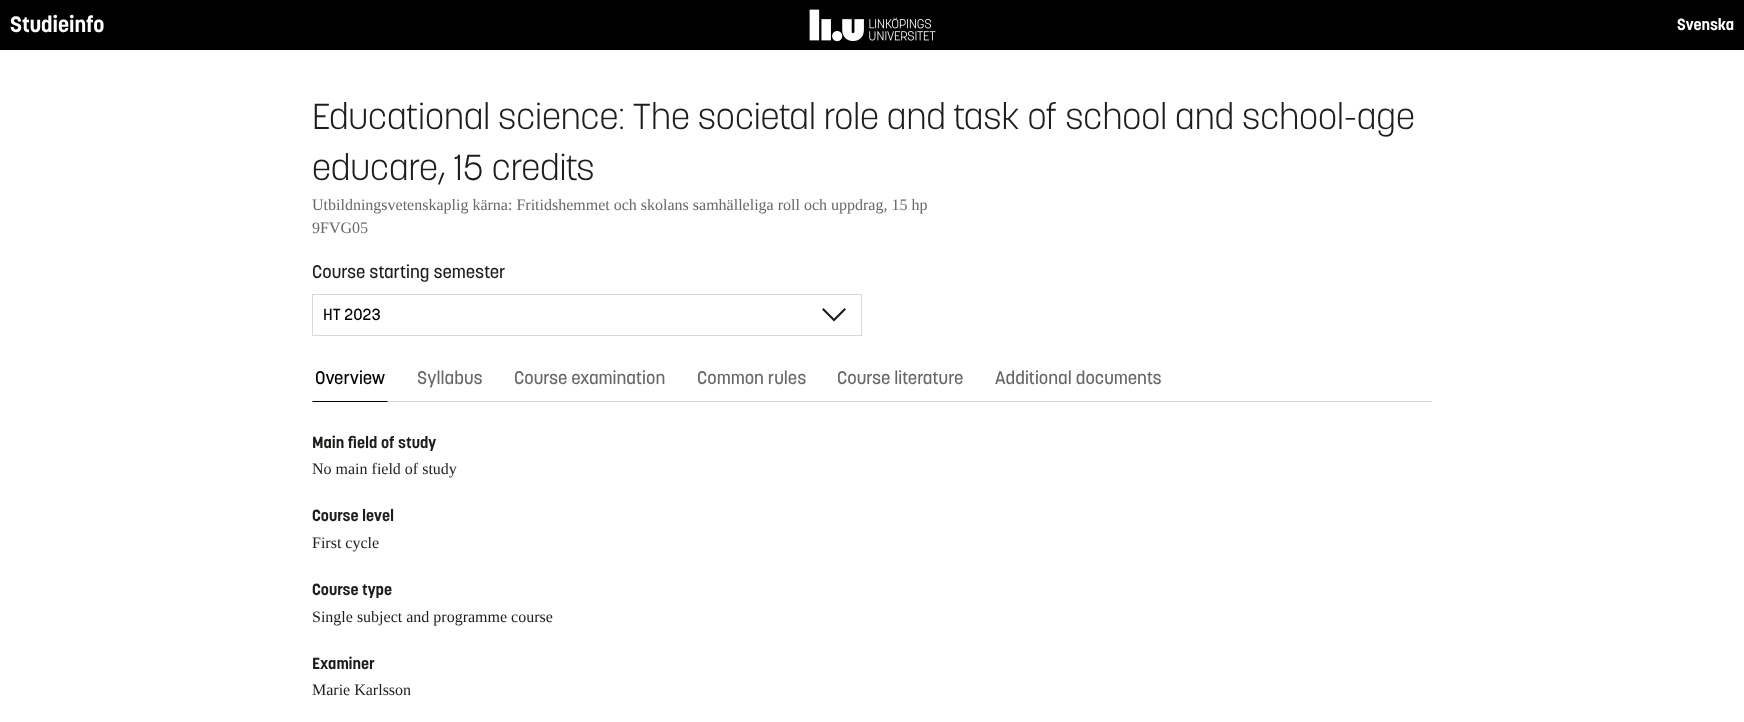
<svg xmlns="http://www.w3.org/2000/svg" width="1744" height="722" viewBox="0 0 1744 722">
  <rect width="100%" height="100%" fill="#ffffff"/>
  <rect x="0" y="0" width="1744" height="50" fill="#000000"/>
  <image x="809" y="9" width="127" height="33" href="img1.png"/>
  <text x="10" y="32" font-family="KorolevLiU" font-size="22" font-weight="bold" fill="#ffffff">Studieinfo</text>
  <text x="1677" y="30" font-family="KorolevLiU" font-size="16" font-weight="bold" fill="#ffffff">Svenska</text>
  <text x="312" y="129" font-family="KorolevLiU" font-size="36" font-weight="300" fill="#1d1d1b">Educational science: The societal role and task of school and school-age</text>
  <text x="312" y="180" font-family="KorolevLiU" font-size="36" font-weight="300" fill="#1d1d1b">educare, 15 credits</text>
  <text x="312" y="210" font-family="Liberation Serif" font-size="16" fill="#686868">Utbildningsvetenskaplig kärna: Fritidshemmet och skolans samhälleliga roll och uppdrag, 15 hp</text>
  <text x="312" y="233" font-family="Liberation Serif" font-size="16" fill="#686868">9FVG05</text>
  <text x="312" y="278" font-family="KorolevLiU" font-size="18" font-weight="500" fill="#1d1d1b">Course starting semester</text>
  <rect x="312.5" y="294.5" width="549" height="41" fill="none" stroke="#d9d9d9"/>
  <text x="323" y="320" font-family="KorolevLiU" font-size="16" font-weight="500" fill="#000000">HT 2023</text>
  <path d="M834 321.5L822 309.5L823.5 308L834 318.5L844.5 308L846 309.5Z" fill="#1d1d1b"/>
  <rect x="312" y="401" width="1120" height="1" fill="#d9d9d9"/>
  <path d="M388 402H312L313 401H387Z" fill="#000000"/>
  <text x="315" y="384" font-family="KorolevLiU" font-size="18" font-weight="500" fill="#000000">Overview</text>
  <text x="417" y="384" font-family="KorolevLiU" font-size="18" font-weight="500" fill="#686868">Syllabus</text>
  <text x="514" y="384" font-family="KorolevLiU" font-size="18" font-weight="500" fill="#686868">Course examination</text>
  <text x="697" y="384" font-family="KorolevLiU" font-size="18" font-weight="500" fill="#686868">Common rules</text>
  <text x="837" y="384" font-family="KorolevLiU" font-size="18" font-weight="500" fill="#686868">Course literature</text>
  <text x="995" y="384" font-family="KorolevLiU" font-size="18" font-weight="500" fill="#686868">Additional documents</text>
  <text x="312" y="448" font-family="KorolevLiU" font-size="16" font-weight="bold" fill="#1d1d1b">Main field of study</text>
  <text x="312" y="474" font-family="Liberation Serif" font-size="16" fill="#1d1d1b">No main field of study</text>
  <text x="312" y="521" font-family="KorolevLiU" font-size="16" font-weight="bold" fill="#1d1d1b">Course level</text>
  <text x="312" y="548" font-family="Liberation Serif" font-size="16" fill="#1d1d1b">First cycle</text>
  <text x="312" y="595" font-family="KorolevLiU" font-size="16" font-weight="bold" fill="#1d1d1b">Course type</text>
  <text x="312" y="622" font-family="Liberation Serif" font-size="16" fill="#1d1d1b">Single subject and programme course</text>
  <text x="312" y="669" font-family="KorolevLiU" font-size="16" font-weight="bold" fill="#1d1d1b">Examiner</text>
  <text x="312" y="695" font-family="Liberation Serif" font-size="16" fill="#1d1d1b">Marie Karlsson</text>
</svg>
